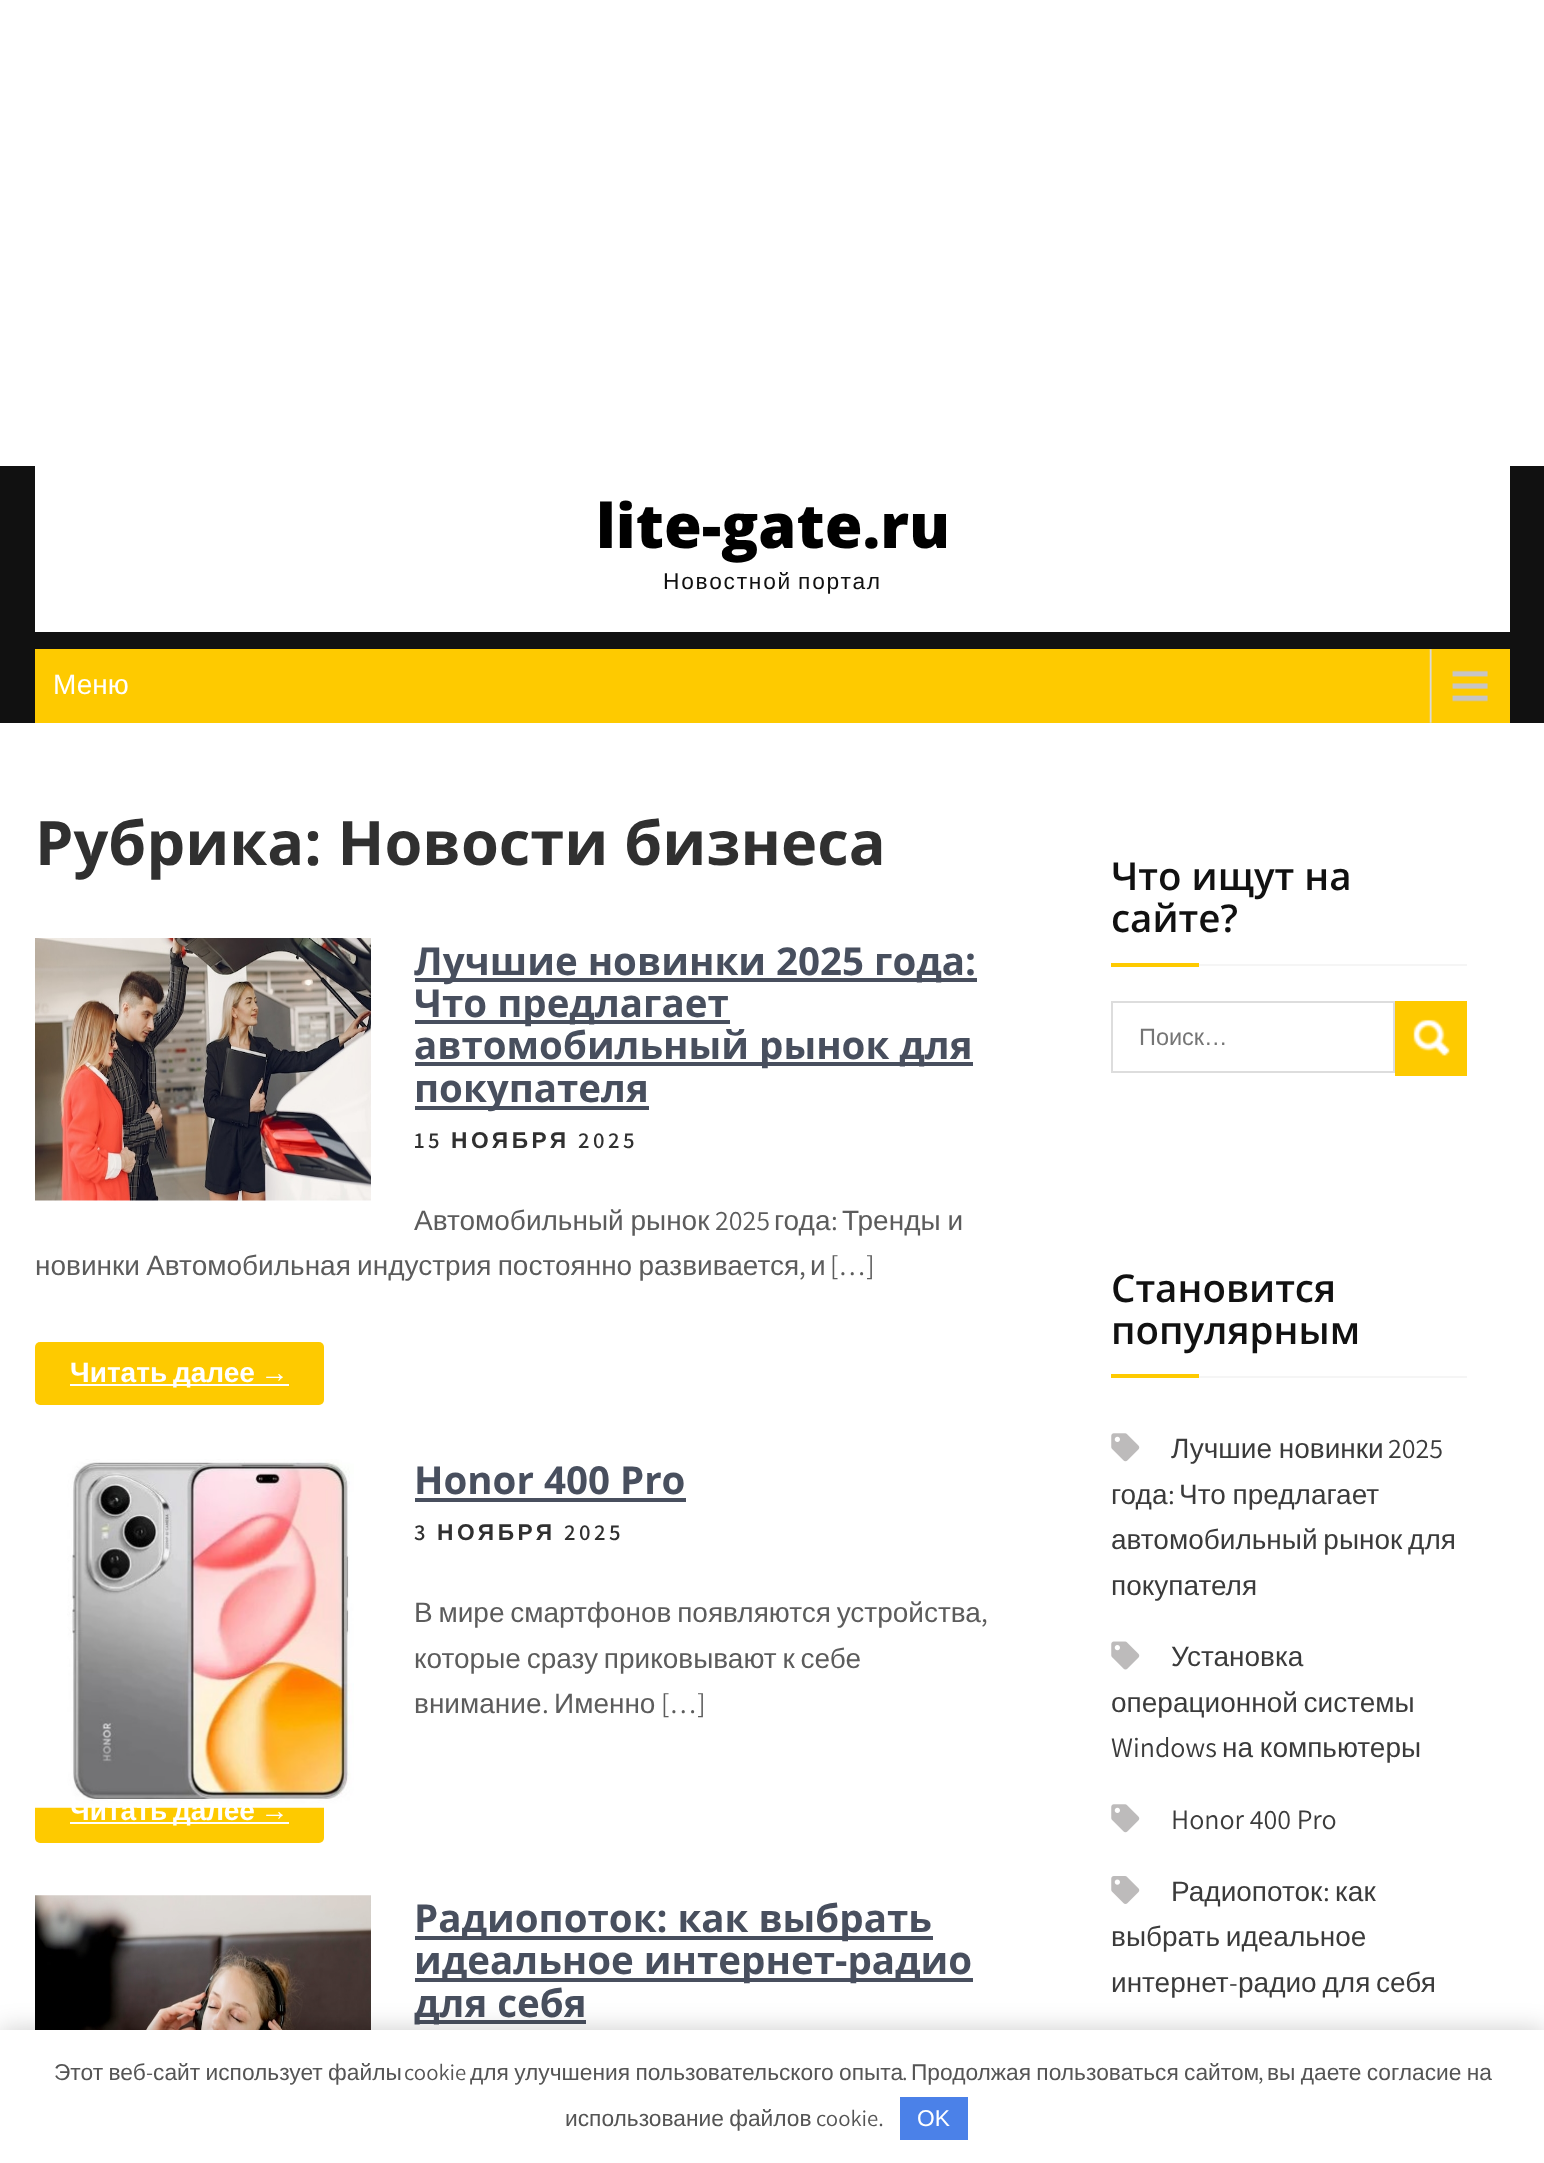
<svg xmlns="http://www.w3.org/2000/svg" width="1544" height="2163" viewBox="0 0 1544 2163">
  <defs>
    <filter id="blur1" x="-50%" y="-200%" width="200%" height="500%"><feGaussianBlur stdDeviation="13"/></filter>
  </defs>
  <rect width="100%" height="100%" fill="#ffffff"/>
  <rect x="0" y="466" width="1544" height="257" fill="#111111"/>
  <rect x="35" y="466" width="1475" height="166" fill="#ffffff"/>
  <text x="596" y="548" font-family="Open Sans" font-size="61.25" font-weight="800" fill="#000000">lite-gate.ru</text>
  <text x="663" y="589" word-spacing="-2" font-family="Liberation Sans" font-size="22.75" letter-spacing="1.75" fill="#111111">Новостной портал</text>
  <rect x="35" y="649" width="1475" height="74" fill="#feca00"/>
  <image x="1429" y="649" width="59" height="74" href="img1.png"/>
  <text x="53" y="694" font-family="Liberation Sans" font-size="28" fill="#ffffff">Меню</text>
  <text x="35" y="865" font-family="Open Sans" font-size="61.25" font-weight="bold" fill="#303030">Рубрика: Новости бизнеса</text>
  <image x="35" y="938" width="336" height="263" href="img2.png"/>
  <rect x="415" y="978" width="562" height="4" fill="#484f5e"/>
  <text x="414" y="975" font-family="Open Sans" font-size="38.5" font-weight="bold" fill="#484f5e">Лучшие новинки 2025 года:</text>
  <rect x="415" y="1020" width="315" height="4" fill="#484f5e"/>
  <text x="414" y="1017" font-family="Open Sans" font-size="38.5" font-weight="bold" fill="#484f5e">Что предлагает</text>
  <rect x="415" y="1062" width="558" height="4" fill="#484f5e"/>
  <text x="414" y="1059" font-family="Open Sans" font-size="38.5" font-weight="bold" fill="#484f5e">автомобильный рынок для</text>
  <rect x="415" y="1106" width="234" height="4" fill="#484f5e"/>
  <text x="414" y="1102" font-family="Open Sans" font-size="38.5" font-weight="bold" fill="#484f5e">покупателя</text>
  <text x="414" y="1148" font-family="Assistant" font-size="22.75" font-weight="600" letter-spacing="3.5" fill="#303030">15</text>
  <text x="451" y="1148" font-family="Liberation Sans" font-size="22.75" font-weight="bold" letter-spacing="3.5" fill="#303030">НОЯБРЯ</text>
  <text x="578" y="1148" font-family="Assistant" font-size="22.75" font-weight="600" letter-spacing="3.5" fill="#303030">2025</text>
  <text x="414" y="1230" word-spacing="-1" font-family="Liberation Sans" font-size="28" fill="#5c5c5c">Автомобильный рынок</text>
  <text x="715" y="1230" font-family="Assistant" font-size="28" fill="#5c5c5c">2025</text>
  <text x="774" y="1230" font-family="Liberation Sans" font-size="28" fill="#5c5c5c">года</text>
  <text x="831" y="1230" font-family="Assistant" font-size="28" fill="#5c5c5c">:</text>
  <text x="842" y="1230" word-spacing="-1" font-family="Liberation Sans" font-size="28" fill="#5c5c5c">Тренды и</text>
  <text x="35" y="1275" word-spacing="-1.5" font-family="Liberation Sans" font-size="28" fill="#5c5c5c">новинки Автомобильная индустрия постоянно развивается</text>
  <text x="810" y="1275" font-family="Liberation Sans" font-size="28" fill="#5c5c5c">и</text>
  <text x="830" y="1275" font-family="Assistant" font-size="28" fill="#5c5c5c">[…]</text>
  <text x="799" y="1275" font-family="Assistant" font-size="28" fill="#5c5c5c">,</text>
  <rect x="35" y="1342" width="289" height="63" rx="5" fill="#feca00"/>
  <rect x="70" y="1384" width="219" height="2" fill="#ffffff"/>
  <text x="70" y="1382" word-spacing="-2" font-family="Liberation Sans" font-size="28" font-weight="bold" fill="#ffffff">Читать далее →</text>
  <rect x="35" y="1780" width="289" height="63" rx="5" fill="#feca00"/>
  <rect x="70" y="1822" width="219" height="2" fill="#ffffff"/>
  <text x="70" y="1820" word-spacing="-2" font-family="Liberation Sans" font-size="28" font-weight="bold" fill="#ffffff">Читать далее →</text>
  <image x="35" y="1459" width="319" height="349" href="img3.png"/>
  <text x="414" y="1494" font-family="Open Sans" font-size="38.5" font-weight="bold" fill="#484f5e">Honor 400 Pro</text>
  <rect x="415" y="1498" width="271" height="4" fill="#484f5e"/>
  <text x="414" y="1540" font-family="Assistant" font-size="22.75" font-weight="600" letter-spacing="3.5" fill="#303030">3</text>
  <text x="437" y="1540" font-family="Liberation Sans" font-size="22.75" font-weight="bold" letter-spacing="3.5" fill="#303030">НОЯБРЯ</text>
  <text x="564" y="1540" font-family="Assistant" font-size="22.75" font-weight="600" letter-spacing="3.5" fill="#303030">2025</text>
  <text x="414" y="1622" word-spacing="-2" font-family="Liberation Sans" font-size="28" fill="#5c5c5c">В мире смартфонов появляются устройства</text>
  <text x="981" y="1622" font-family="Assistant" font-size="28" fill="#5c5c5c">,</text>
  <text x="414" y="1668" word-spacing="-2" font-family="Liberation Sans" font-size="28" fill="#5c5c5c">которые сразу приковывают к себе</text>
  <text x="414" y="1713" font-family="Liberation Sans" font-size="28" fill="#5c5c5c">внимание</text>
  <text x="542" y="1713" font-family="Assistant" font-size="28" fill="#5c5c5c">.</text>
  <text x="554" y="1713" font-family="Liberation Sans" font-size="28" fill="#5c5c5c">Именно</text>
  <text x="661" y="1713" font-family="Assistant" font-size="28" fill="#5c5c5c">[…]</text>
  <image x="35" y="1895" width="336" height="135" href="img4.png"/>
  <rect x="415" y="1936" width="518" height="4" fill="#484f5e"/>
  <text x="414" y="1932" font-family="Open Sans" font-size="38.5" font-weight="bold" fill="#484f5e">Радиопоток: как выбрать</text>
  <rect x="415" y="1978" width="558" height="4" fill="#484f5e"/>
  <text x="414" y="1974" font-family="Open Sans" font-size="38.5" font-weight="bold" fill="#484f5e">идеальное интернет-радио</text>
  <rect x="415" y="2020" width="171" height="4" fill="#484f5e"/>
  <text x="414" y="2017" font-family="Open Sans" font-size="38.5" font-weight="bold" fill="#484f5e">для себя</text>
  <rect x="1199" y="964" width="268" height="2" fill="#f5f5f5"/>
  <text x="1111" y="890" font-family="Open Sans" font-size="38.5" font-weight="600" fill="#111111">Что ищут на</text>
  <text x="1111" y="932" font-family="Open Sans" font-size="38.5" font-weight="600" fill="#111111">сайте?</text>
  <rect x="1111" y="963" width="88" height="4" fill="#feca00"/>
  <rect x="1112" y="1002" width="282" height="70" fill="none" stroke="#dddddd" stroke-width="2"/>
  <text x="1139" y="1045" font-family="Liberation Sans" font-size="23.5" fill="#757575">Поиск…</text>
  <rect x="1395" y="1001" width="72" height="75" fill="#feca00"/>
  <image x="1413" y="1019" width="37" height="37" href="img5.png"/>
  <rect x="1199" y="1376" width="268" height="2" fill="#f5f5f5"/>
  <text x="1111" y="1302" font-family="Open Sans" font-size="38.5" font-weight="600" fill="#111111">Становится</text>
  <text x="1111" y="1344" font-family="Open Sans" font-size="38.5" font-weight="600" fill="#111111">популярным</text>
  <rect x="1111" y="1374" width="88" height="4" fill="#feca00"/>
  <image x="1111" y="1433" width="29" height="29" href="img6.png"/>
  <text x="1171" y="1458" word-spacing="-1" font-family="Liberation Sans" font-size="28" fill="#3b3b3b">Лучшие новинки</text>
  <text x="1388" y="1458" font-family="Assistant" font-size="28" fill="#3b3b3b">2025</text>
  <text x="1111" y="1504" font-family="Liberation Sans" font-size="28" fill="#3b3b3b">года</text>
  <text x="1168" y="1504" font-family="Assistant" font-size="28" fill="#3b3b3b">:</text>
  <text x="1179" y="1504" word-spacing="-1" font-family="Liberation Sans" font-size="28" fill="#3b3b3b">Что предлагает</text>
  <text x="1111" y="1549" word-spacing="-2" font-family="Liberation Sans" font-size="28" fill="#3b3b3b">автомобильный рынок для</text>
  <text x="1111" y="1595" font-family="Liberation Sans" font-size="28" fill="#3b3b3b">покупателя</text>
  <image x="1111" y="1641" width="29" height="29" href="img7.png"/>
  <text x="1171" y="1666" font-family="Liberation Sans" font-size="28" fill="#3b3b3b">Установка</text>
  <text x="1111" y="1712" word-spacing="-2" font-family="Liberation Sans" font-size="28" fill="#3b3b3b">операционной системы</text>
  <text x="1111" y="1757" font-family="Assistant" font-size="28" fill="#3b3b3b">Windows</text>
  <text x="1222" y="1757" word-spacing="-1" font-family="Liberation Sans" font-size="28" fill="#3b3b3b">на компьютеры</text>
  <image x="1111" y="1804" width="29" height="29" href="img6.png"/>
  <text x="1171" y="1829" font-family="Assistant" font-size="28" fill="#3b3b3b">Honor 400 Pro</text>
  <image x="1111" y="1876" width="29" height="28" href="img8.png"/>
  <text x="1171" y="1901" font-family="Liberation Sans" font-size="28" fill="#3b3b3b">Радиопоток</text>
  <text x="1323" y="1901" font-family="Assistant" font-size="28" fill="#3b3b3b">:</text>
  <text x="1335" y="1901" font-family="Liberation Sans" font-size="28" fill="#3b3b3b">как</text>
  <text x="1111" y="1946" word-spacing="-2" font-family="Liberation Sans" font-size="28" fill="#3b3b3b">выбрать идеальное</text>
  <text x="1111" y="1992" font-family="Liberation Sans" font-size="28" fill="#3b3b3b">интернет</text>
  <text x="1229" y="1992" font-family="Assistant" font-size="28" fill="#3b3b3b">-</text>
  <text x="1238" y="1992" word-spacing="-2" font-family="Liberation Sans" font-size="28" fill="#3b3b3b">радио для себя</text>
  <rect x="0" y="2030" width="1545" height="133" fill="#000000" fill-opacity="0.2" filter="url(#blur1)"/>
  <rect x="0" y="2030" width="1544" height="133" fill="#ffffff"/>
  <text x="54" y="2080" word-spacing="-1" font-family="Liberation Sans" font-size="22.75" fill="#555555">Этот веб</text>
  <text x="146" y="2080" font-family="Assistant" font-size="22.75" fill="#555555">-</text>
  <text x="153" y="2080" word-spacing="-1" font-family="Liberation Sans" font-size="22.75" fill="#555555">сайт использует файлы</text>
  <text x="404" y="2080" font-family="Assistant" font-size="22.75" fill="#555555">cookie</text>
  <text x="470" y="2080" word-spacing="-1" font-family="Liberation Sans" font-size="22.75" fill="#555555">для улучшения пользовательского опыта</text>
  <text x="911" y="2080" word-spacing="-1" font-family="Liberation Sans" font-size="22.75" fill="#555555">Продолжая пользоваться сайтом</text>
  <text x="1267" y="2080" word-spacing="-1" font-family="Liberation Sans" font-size="22.75" fill="#555555">вы даете согласие на</text>
  <text x="902" y="2080" font-family="Assistant" font-size="22.75" fill="#555555">.</text>
  <text x="1258" y="2080" font-family="Assistant" font-size="22.75" fill="#555555">,</text>
  <text x="565" y="2126" word-spacing="-1" font-family="Liberation Sans" font-size="22.75" fill="#555555">использование файлов</text>
  <text x="816" y="2126" font-family="Assistant" font-size="22.75" fill="#555555">cookie.</text>
  <rect x="900" y="2097" width="68" height="43" fill="#4b81e8"/>
  <text x="917" y="2126" font-family="Liberation Sans" font-size="22.75" fill="#ffffff">OK</text>
</svg>
